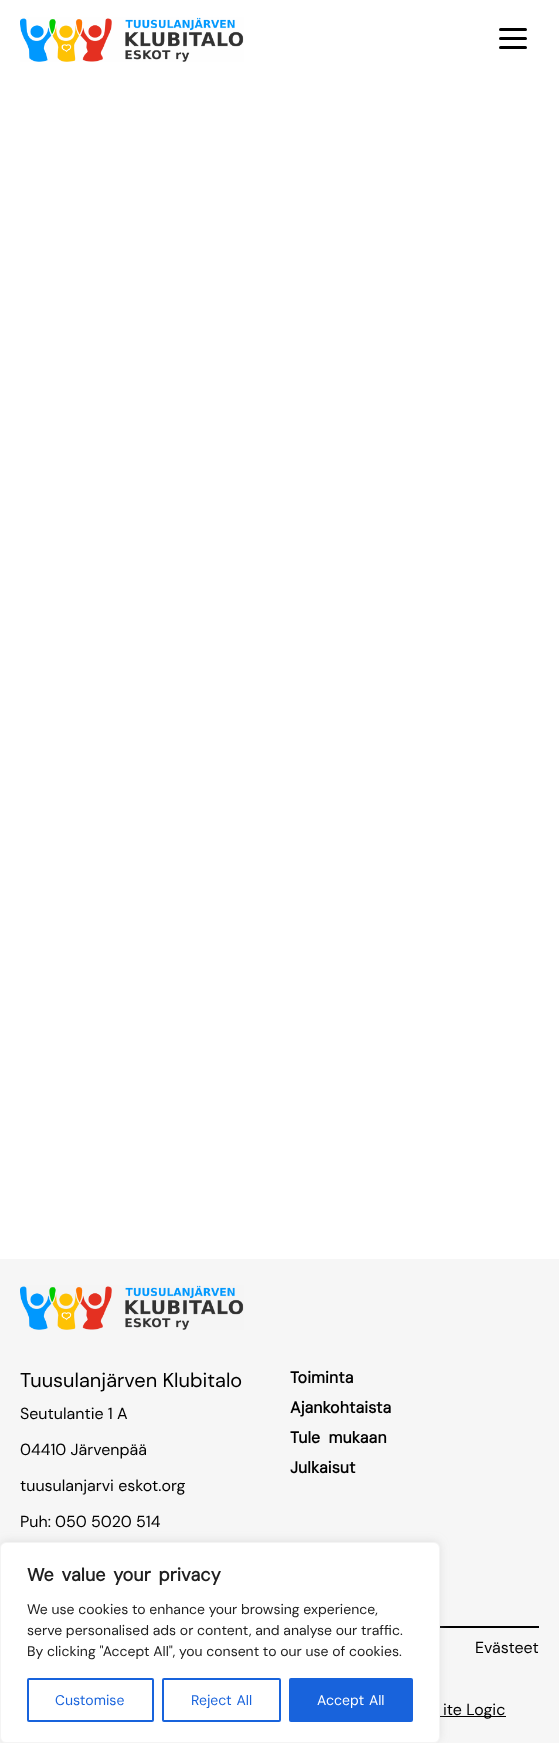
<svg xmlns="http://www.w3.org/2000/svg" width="559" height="1743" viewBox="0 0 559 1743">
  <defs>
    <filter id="blur1" x="-50%" y="-200%" width="200%" height="500%"><feGaussianBlur stdDeviation="5"/></filter>
  </defs>
  <rect width="100%" height="100%" fill="#ffffff"/>
  <image x="20" y="17" width="224" height="45" href="img1.png"/>
  <rect x="499" y="37" width="28" height="3" rx="1.5" fill="#000000"/>
  <rect x="499" y="28" width="28" height="3" rx="1.5" fill="#000000"/>
  <rect x="499" y="46" width="28" height="3" rx="1.5" fill="#000000"/>
  <rect x="0" y="1259" width="559" height="484" fill="#f6f6f6"/>
  <image x="20" y="1285" width="224" height="45" href="img2.png"/>
  <text x="20" y="1387" font-family="'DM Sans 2'" font-size="20" fill="#000000">Tuusulanjärven Klubitalo</text>
  <text x="20" y="1419" font-family="DM Sans" font-size="16" fill="#000000">Seutulantie 1 A</text>
  <text x="20" y="1455" font-family="DM Sans" font-size="16" fill="#000000">04410 Järvenpää</text>
  <text x="20" y="1491" font-family="DM Sans" font-size="16" fill="#000000">tuusulanjarvi eskot.org</text>
  <text x="20" y="1527" font-family="DM Sans" font-size="16" fill="#000000">Puh: 050 5020 514</text>
  <text x="290" y="1383" font-family="DM Sans" font-size="16" font-weight="bold" fill="#000000">Toiminta</text>
  <text x="290" y="1413" font-family="DM Sans" font-size="16" font-weight="bold" fill="#000000">Ajankohtaista</text>
  <text x="290" y="1443" word-spacing="4" font-family="DM Sans" font-size="16" font-weight="bold" fill="#000000">Tule mukaan</text>
  <text x="290" y="1473" font-family="DM Sans" font-size="16" font-weight="bold" fill="#000000">Julkaisut</text>
  <rect x="440" y="1626" width="99" height="2" fill="#000000"/>
  <text x="475" y="1653" font-family="DM Sans" font-size="16" fill="#000000">Evästeet</text>
  <rect x="434" y="1716" width="72" height="1" fill="#000000"/>
  <text x="443" y="1715" font-family="DM Sans" font-size="16" fill="#000000">ite Logic</text>
  <rect x="0" y="1541" width="440" height="201" rx="6" fill="#acabab" fill-opacity="0.3" filter="url(#blur1)"/>
  <rect x="0.5" y="1542.5" width="439" height="200" rx="5.5" fill="#ffffff" stroke="#f4f4f4"/>
  <text x="27" y="1581" word-spacing="3" font-family="DM Sans" font-size="18" font-weight="bold" fill="#212121">We value your privacy</text>
  <text x="27" y="1614" font-family="'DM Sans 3'" font-size="14" fill="#212121">We use cookies to enhance your browsing experience,</text>
  <text x="27" y="1635" font-family="'DM Sans 3'" font-size="14" fill="#212121">serve personalised ads or content, and analyse our traffic.</text>
  <text x="27" y="1656" font-family="'DM Sans 3'" font-size="14" fill="#212121">By clicking "Accept All", you consent to our use of cookies.</text>
  <rect x="28" y="1679" width="125" height="42" rx="1" fill="none" stroke="#1863dc" stroke-width="2"/>
  <text x="55" y="1705" font-family="'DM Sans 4'" font-size="14" fill="#1863dc">Customise</text>
  <rect x="163" y="1679" width="117" height="42" rx="1" fill="none" stroke="#1863dc" stroke-width="2"/>
  <text x="191" y="1705" word-spacing="1" font-family="'DM Sans 4'" font-size="14" fill="#1863dc">Reject All</text>
  <rect x="290" y="1679" width="122" height="42" rx="1" fill="#1863dc" stroke="#1863dc" stroke-width="2"/>
  <text x="317" y="1705" word-spacing="1" font-family="'DM Sans 4'" font-size="14" fill="#ffffff">Accept All</text>
</svg>
